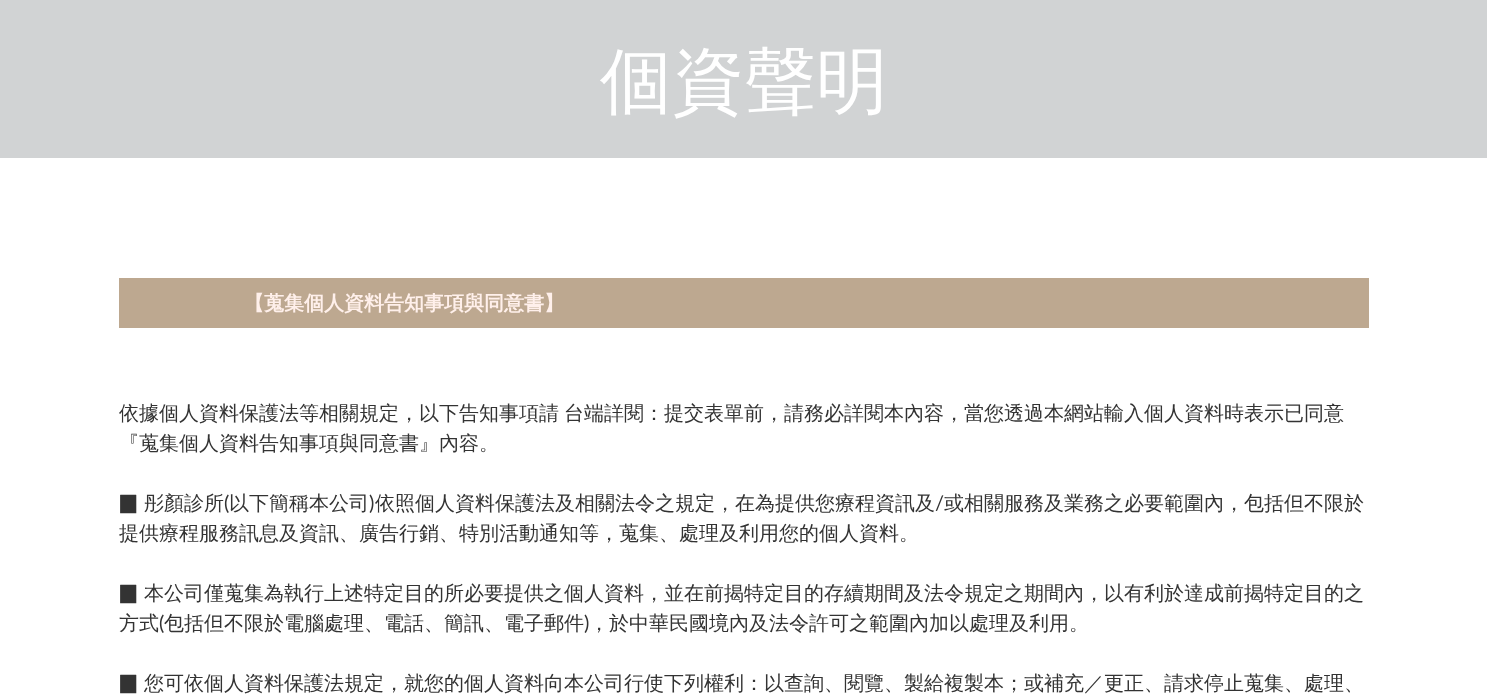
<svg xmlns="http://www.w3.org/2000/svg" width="1487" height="694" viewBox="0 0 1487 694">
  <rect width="100%" height="100%" fill="#ffffff"/>
  <rect x="0" y="0" width="1487" height="158" fill="#d1d3d4"/>
  <text x="600" y="106" font-family="WenQuanYi Zen Hei" font-size="72" font-weight="500" fill="#ffffff">個資聲明</text>
  <rect x="119" y="278" width="1250" height="50" fill="#bda890"/>
  <text x="244" y="310" font-family="WenQuanYi Zen Hei" font-size="20" font-weight="bold" fill="#fff0eb">【蒐集個人資料告知事項與同意書】</text>
  <text x="119" y="420" word-spacing="-1" font-family="WenQuanYi Zen Hei" font-size="20" font-weight="500" fill="#333333">依據個人資料保護法等相關規定，以下告知事項請 台端詳閱：提交表單前，請務必詳閱本內容，當您透過本網站輸入個人資料時表示已同意</text>
  <text x="119" y="450" font-family="WenQuanYi Zen Hei" font-size="20" font-weight="500" fill="#333333">『蒐集個人資料告知事項與同意書』內容。</text>
  <text x="119" y="510" word-spacing="-1" font-family="WenQuanYi Zen Hei" font-size="20" font-weight="500" fill="#333333">▉ 彤顏診所</text>
  <text x="224" y="510" font-family="Lato" font-size="20" fill="#333333">(</text>
  <text x="229" y="510" font-family="WenQuanYi Zen Hei" font-size="20" font-weight="500" fill="#333333">以下簡稱本公司</text>
  <text x="369" y="510" font-family="Lato" font-size="20" fill="#333333">)</text>
  <text x="375" y="510" font-family="WenQuanYi Zen Hei" font-size="20" font-weight="500" fill="#333333">依照個人資料保護法及相關法令之規定，在為提供您療程資訊及</text>
  <text x="935" y="510" font-family="Lato" font-size="20" fill="#333333">/</text>
  <text x="944" y="510" font-family="WenQuanYi Zen Hei" font-size="20" font-weight="500" fill="#333333">或相關服務及業務之必要範圍內，包括但不限於</text>
  <text x="119" y="540" font-family="WenQuanYi Zen Hei" font-size="20" font-weight="500" fill="#333333">提供療程服務訊息及資訊、廣告行銷、特別活動通知等，蒐集、處理及利用您的個人資料。</text>
  <text x="119" y="600" word-spacing="-1" font-family="WenQuanYi Zen Hei" font-size="20" font-weight="500" fill="#333333">▉ 本公司僅蒐集為執行上述特定目的所必要提供之個人資料，並在前揭特定目的存續期間及法令規定之期間內，以有利於達成前揭特定目的之</text>
  <text x="119" y="630" font-family="WenQuanYi Zen Hei" font-size="20" font-weight="500" fill="#333333">方式</text>
  <text x="159" y="630" font-family="Lato" font-size="20" fill="#333333">(</text>
  <text x="164" y="630" font-family="WenQuanYi Zen Hei" font-size="20" font-weight="500" fill="#333333">包括但不限於電腦處理、電話、簡訊、電子郵件</text>
  <text x="584" y="630" font-family="Lato" font-size="20" fill="#333333">)</text>
  <text x="589" y="630" font-family="WenQuanYi Zen Hei" font-size="20" font-weight="500" fill="#333333">，於中華民國境內及法令許可之範圍內加以處理及利用。</text>
  <text x="119" y="690" word-spacing="-1" font-family="WenQuanYi Zen Hei" font-size="20" font-weight="500" fill="#333333">▉ 您可依個人資料保護法規定，就您的個人資料向本公司行使下列權利：以查詢、閱覽、製給複製本；或補充／更正、請求停止蒐集、處理、</text>
</svg>
